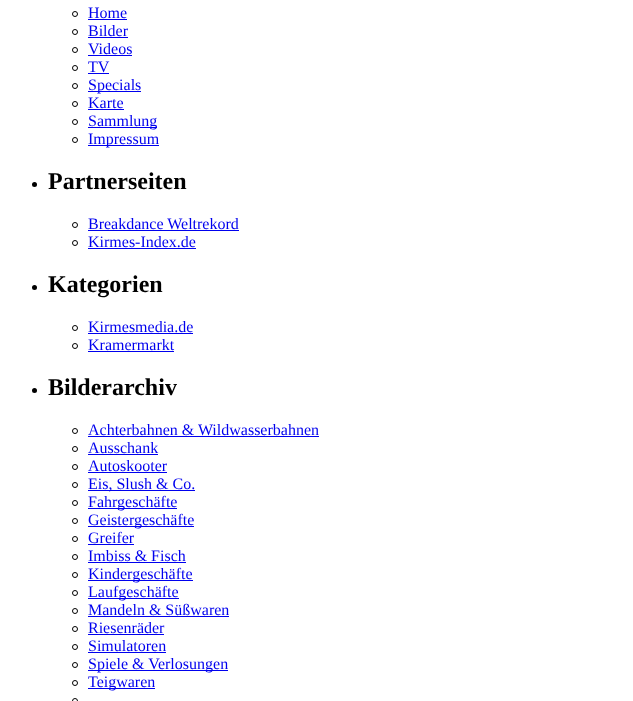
<svg xmlns="http://www.w3.org/2000/svg" width="633" height="701" viewBox="0 0 633 701">
  <rect width="100%" height="100%" fill="#ffffff"/>
  <circle cx="75" cy="14" r="2.5" fill="none" stroke="#000000"/>
  <text x="88" y="18" font-family="Liberation Serif" font-size="16" fill="#0000ee">Home</text>
  <rect x="88" y="19" width="39" height="1" fill="#0000ee"/>
  <circle cx="75" cy="32" r="2.5" fill="none" stroke="#000000"/>
  <text x="88" y="36" font-family="Liberation Serif" font-size="16" fill="#0000ee">Bilder</text>
  <rect x="88" y="37" width="40" height="1" fill="#0000ee"/>
  <circle cx="75" cy="50" r="2.5" fill="none" stroke="#000000"/>
  <text x="88" y="54" font-family="Liberation Serif" font-size="16" fill="#0000ee">Videos</text>
  <rect x="88" y="55" width="44" height="1" fill="#0000ee"/>
  <circle cx="75" cy="68" r="2.5" fill="none" stroke="#000000"/>
  <text x="88" y="72" font-family="Liberation Serif" font-size="16" fill="#0000ee">TV</text>
  <rect x="88" y="73" width="21" height="1" fill="#0000ee"/>
  <circle cx="75" cy="86" r="2.5" fill="none" stroke="#000000"/>
  <rect x="88" y="91" width="53" height="1" fill="#0000ee"/>
  <text x="88" y="90" font-family="Liberation Serif" font-size="16" fill="#0000ee">Specials</text>
  <circle cx="75" cy="104" r="2.5" fill="none" stroke="#000000"/>
  <text x="88" y="108" font-family="Liberation Serif" font-size="16" fill="#0000ee">Karte</text>
  <rect x="88" y="109" width="36" height="1" fill="#0000ee"/>
  <circle cx="75" cy="122" r="2.5" fill="none" stroke="#000000"/>
  <rect x="88" y="127" width="69" height="1" fill="#0000ee"/>
  <text x="88" y="126" font-family="Liberation Serif" font-size="16" fill="#0000ee">Sammlung</text>
  <circle cx="75" cy="140" r="2.5" fill="none" stroke="#000000"/>
  <rect x="88" y="145" width="71" height="1" fill="#0000ee"/>
  <text x="88" y="144" font-family="Liberation Serif" font-size="16" fill="#0000ee">Impressum</text>
  <circle cx="34.5" cy="184.5" r="2.5" fill="#000000"/>
  <text x="48" y="189" font-family="Liberation Serif" font-size="24" font-weight="bold" fill="#000000">Partnerseiten</text>
  <circle cx="75" cy="225" r="2.5" fill="none" stroke="#000000"/>
  <text x="88" y="229" font-family="Liberation Serif" font-size="16" fill="#0000ee">Breakdance Weltrekord</text>
  <rect x="88" y="230" width="151" height="1" fill="#0000ee"/>
  <circle cx="75" cy="243" r="2.5" fill="none" stroke="#000000"/>
  <text x="88" y="247" font-family="Liberation Serif" font-size="16" fill="#0000ee">Kirmes-Index.de</text>
  <rect x="88" y="248" width="108" height="1" fill="#0000ee"/>
  <circle cx="34.5" cy="287.5" r="2.5" fill="#000000"/>
  <text x="48" y="292" font-family="Liberation Serif" font-size="24" font-weight="bold" fill="#000000">Kategorien</text>
  <circle cx="75" cy="328" r="2.5" fill="none" stroke="#000000"/>
  <text x="88" y="332" font-family="Liberation Serif" font-size="16" fill="#0000ee">Kirmesmedia.de</text>
  <rect x="88" y="333" width="105" height="1" fill="#0000ee"/>
  <circle cx="75" cy="346" r="2.5" fill="none" stroke="#000000"/>
  <text x="88" y="350" font-family="Liberation Serif" font-size="16" fill="#0000ee">Kramermarkt</text>
  <rect x="88" y="351" width="86" height="1" fill="#0000ee"/>
  <circle cx="34.5" cy="390.5" r="2.5" fill="#000000"/>
  <text x="48" y="395" font-family="Liberation Serif" font-size="24" font-weight="bold" fill="#000000">Bilderarchiv</text>
  <circle cx="75" cy="431" r="2.5" fill="none" stroke="#000000"/>
  <text x="88" y="435" font-family="Liberation Serif" font-size="16" fill="#0000ee">Achterbahnen &amp; Wildwasserbahnen</text>
  <rect x="88" y="436" width="231" height="1" fill="#0000ee"/>
  <circle cx="75" cy="449" r="2.5" fill="none" stroke="#000000"/>
  <text x="88" y="453" font-family="Liberation Serif" font-size="16" fill="#0000ee">Ausschank</text>
  <rect x="88" y="454" width="70" height="1" fill="#0000ee"/>
  <circle cx="75" cy="467" r="2.5" fill="none" stroke="#000000"/>
  <text x="88" y="471" font-family="Liberation Serif" font-size="16" fill="#0000ee">Autoskooter</text>
  <rect x="88" y="472" width="79" height="1" fill="#0000ee"/>
  <circle cx="75" cy="485" r="2.5" fill="none" stroke="#000000"/>
  <rect x="88" y="490" width="107" height="1" fill="#0000ee"/>
  <text x="88" y="489" font-family="Liberation Serif" font-size="16" fill="#0000ee">Eis, Slush &amp; Co.</text>
  <circle cx="75" cy="503" r="2.5" fill="none" stroke="#000000"/>
  <rect x="88" y="508" width="89" height="1" fill="#0000ee"/>
  <text x="88" y="507" font-family="Liberation Serif" font-size="16" fill="#0000ee">Fahrgeschäfte</text>
  <circle cx="75" cy="521" r="2.5" fill="none" stroke="#000000"/>
  <rect x="88" y="526" width="106" height="1" fill="#0000ee"/>
  <text x="88" y="525" font-family="Liberation Serif" font-size="16" fill="#0000ee">Geistergeschäfte</text>
  <circle cx="75" cy="539" r="2.5" fill="none" stroke="#000000"/>
  <text x="88" y="543" font-family="Liberation Serif" font-size="16" fill="#0000ee">Greifer</text>
  <rect x="88" y="544" width="46" height="1" fill="#0000ee"/>
  <circle cx="75" cy="557" r="2.5" fill="none" stroke="#000000"/>
  <text x="88" y="561" font-family="Liberation Serif" font-size="16" fill="#0000ee">Imbiss &amp; Fisch</text>
  <rect x="88" y="562" width="98" height="1" fill="#0000ee"/>
  <circle cx="75" cy="575" r="2.5" fill="none" stroke="#000000"/>
  <rect x="88" y="580" width="105" height="1" fill="#0000ee"/>
  <text x="88" y="579" font-family="Liberation Serif" font-size="16" fill="#0000ee">Kindergeschäfte</text>
  <circle cx="75" cy="593" r="2.5" fill="none" stroke="#000000"/>
  <rect x="88" y="598" width="91" height="1" fill="#0000ee"/>
  <text x="88" y="597" font-family="Liberation Serif" font-size="16" fill="#0000ee">Laufgeschäfte</text>
  <circle cx="75" cy="611" r="2.5" fill="none" stroke="#000000"/>
  <text x="88" y="615" font-family="Liberation Serif" font-size="16" fill="#0000ee">Mandeln &amp; Süßwaren</text>
  <rect x="88" y="616" width="141" height="1" fill="#0000ee"/>
  <circle cx="75" cy="629" r="2.5" fill="none" stroke="#000000"/>
  <text x="88" y="633" font-family="Liberation Serif" font-size="16" fill="#0000ee">Riesenräder</text>
  <rect x="88" y="634" width="76" height="1" fill="#0000ee"/>
  <circle cx="75" cy="647" r="2.5" fill="none" stroke="#000000"/>
  <text x="88" y="651" font-family="Liberation Serif" font-size="16" fill="#0000ee">Simulatoren</text>
  <rect x="88" y="652" width="78" height="1" fill="#0000ee"/>
  <circle cx="75" cy="665" r="2.5" fill="none" stroke="#000000"/>
  <rect x="88" y="670" width="140" height="1" fill="#0000ee"/>
  <text x="88" y="669" font-family="Liberation Serif" font-size="16" fill="#0000ee">Spiele &amp; Verlosungen</text>
  <circle cx="75" cy="683" r="2.5" fill="none" stroke="#000000"/>
  <rect x="88" y="688" width="67" height="1" fill="#0000ee"/>
  <text x="88" y="687" font-family="Liberation Serif" font-size="16" fill="#0000ee">Teigwaren</text>
  <circle cx="75" cy="701" r="2.5" fill="none" stroke="#000000"/>
</svg>
